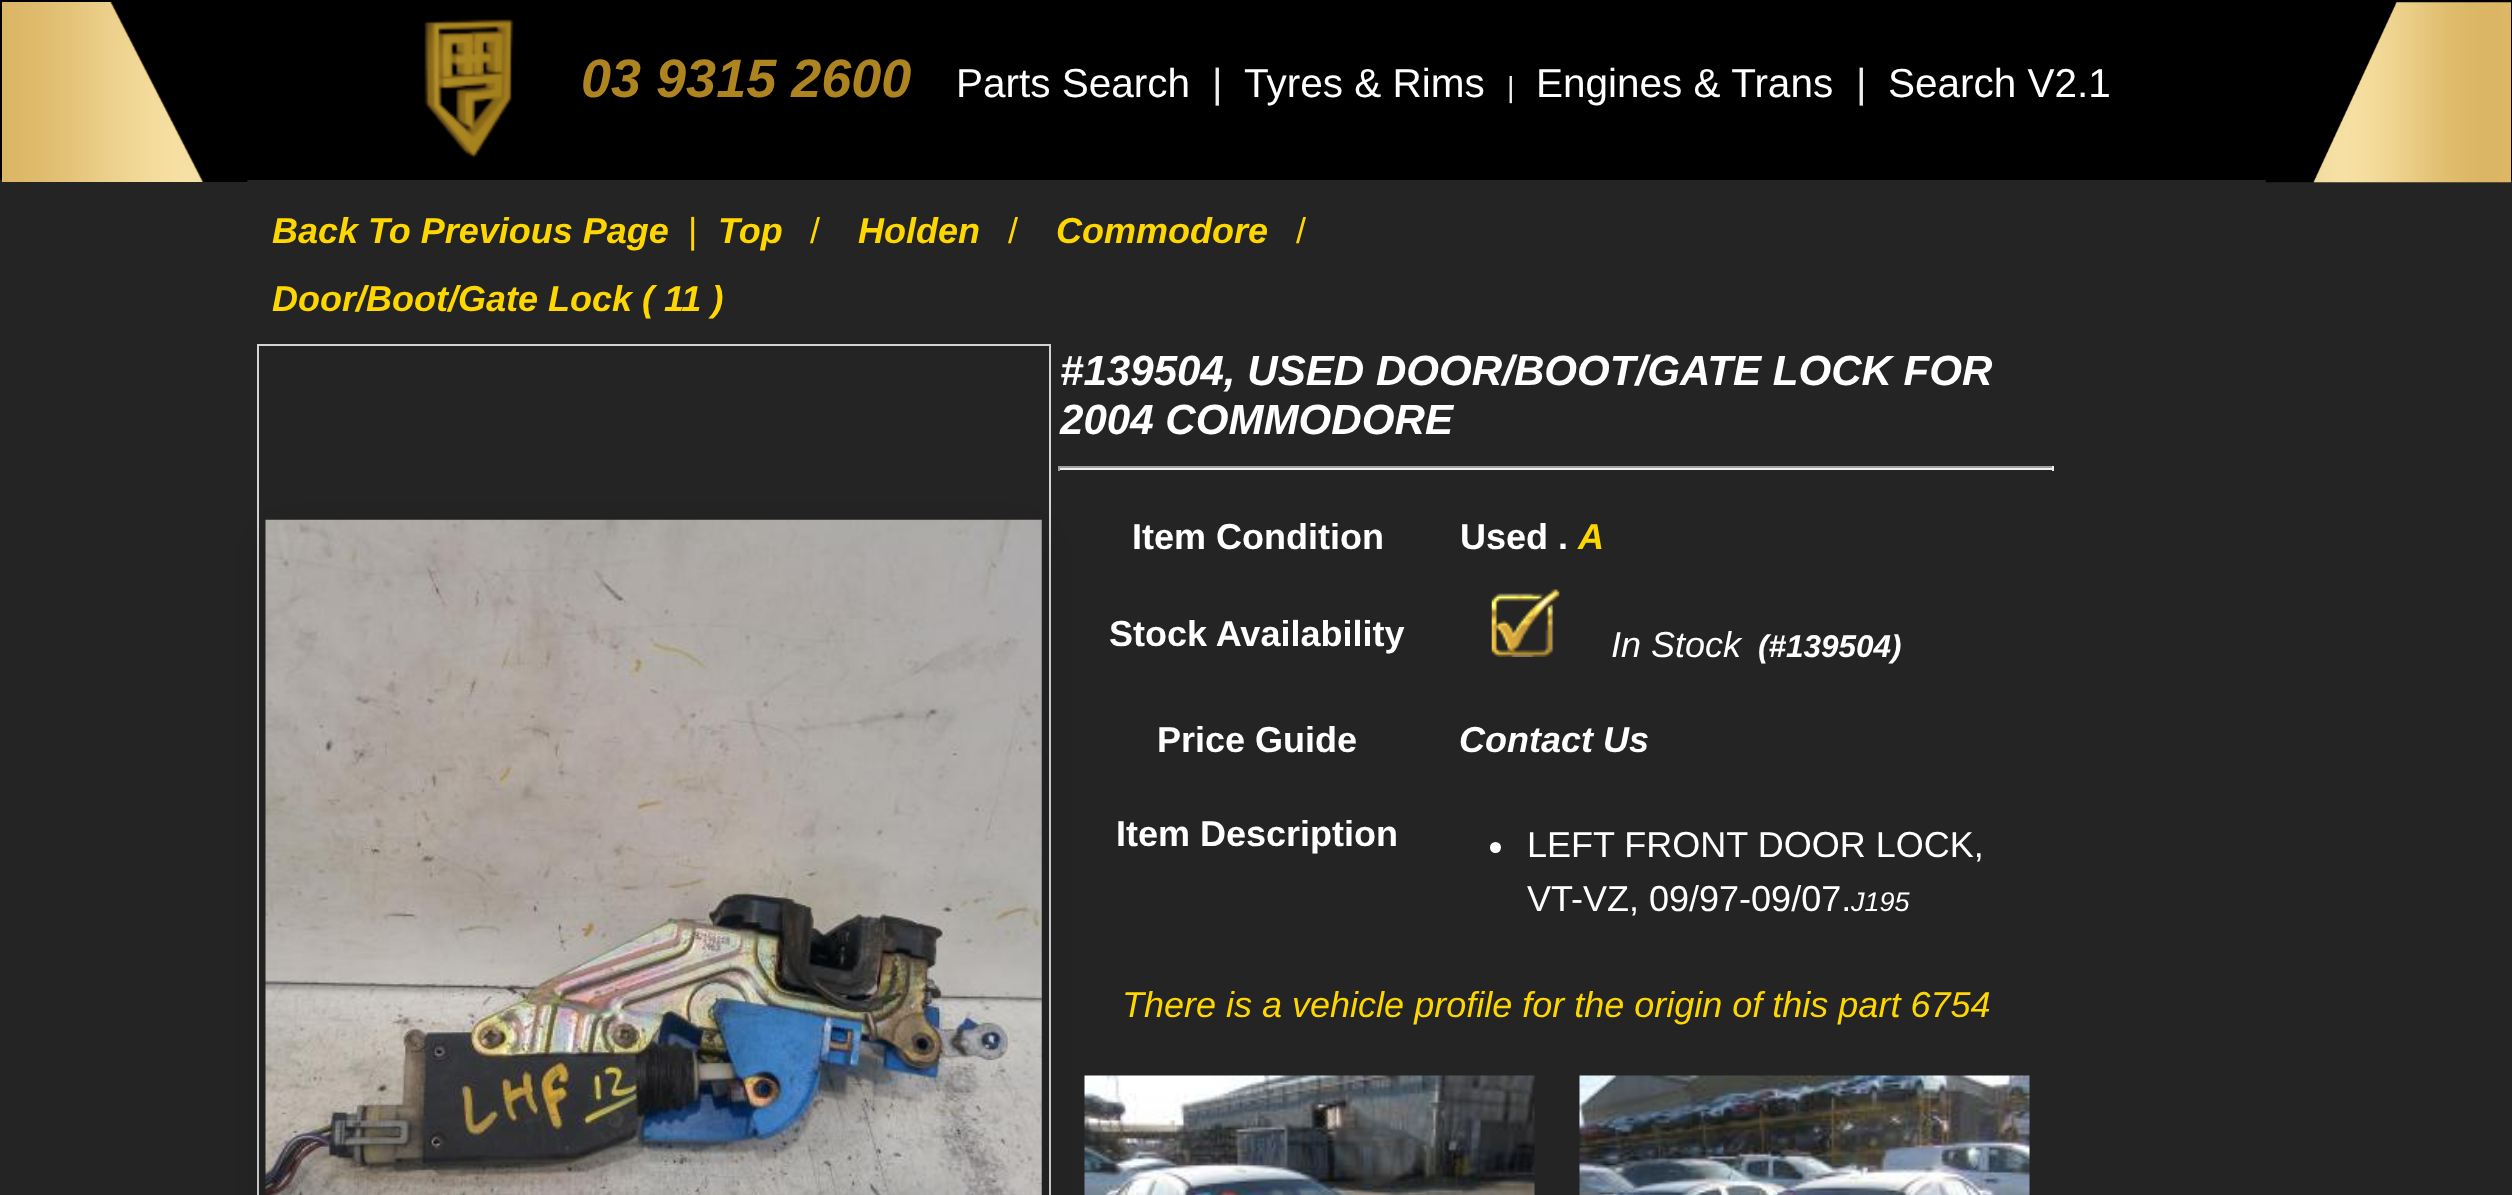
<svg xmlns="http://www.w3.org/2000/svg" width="2512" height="1195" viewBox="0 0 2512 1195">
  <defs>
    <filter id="blur1" x="-50%" y="-200%" width="200%" height="500%"><feGaussianBlur stdDeviation="22.5"/></filter>
  </defs>
  <rect width="100%" height="100%" fill="#242424"/>
  <rect x="0" y="0" width="2512" height="180" fill="#000000"/>
  <image x="2" y="2" width="246" height="180" href="img1.png"/>
  <image x="424" y="19" width="90" height="139" href="img2.png"/>
  <text x="581" y="97" font-family="Liberation Sans" font-size="54" font-weight="bold" font-style="italic" fill="#ad841f">03 9315 2600</text>
  <text x="956" y="97" font-family="Liberation Sans" font-size="40.5" fill="#ffffff">Parts Search</text>
  <text x="1212" y="97" font-family="Liberation Sans" font-size="40.5" fill="#ecf0f1">|</text>
  <text x="1244" y="97" font-family="Liberation Sans" font-size="40.5" fill="#ffffff">Tyres &amp; Rims</text>
  <text x="1507" y="97" font-family="Liberation Sans" font-size="29" fill="#ecf0f1">|</text>
  <text x="1536" y="97" font-family="Liberation Sans" font-size="40.5" fill="#ffffff">Engines &amp; Trans</text>
  <text x="1856" y="97" font-family="Liberation Sans" font-size="40.5" fill="#ecf0f1">|</text>
  <text x="1888" y="97" font-family="Liberation Sans" font-size="40.5" fill="#ffffff">Search V2.1</text>
  <image x="2265" y="2" width="246" height="181" href="img3.png"/>
  <text x="272" y="243" font-family="Liberation Sans" font-size="36" font-weight="bold" font-style="italic" fill="#ffd700">Back To Previous Page</text>
  <text x="688" y="243" font-family="Liberation Sans" font-size="36" fill="#ffd700">|</text>
  <text x="718" y="243" font-family="Liberation Sans" font-size="36" font-weight="bold" font-style="italic" fill="#ffd700">Top</text>
  <text x="810" y="243" font-family="Liberation Sans" font-size="36" fill="#ffd700">/</text>
  <text x="858" y="243" font-family="Liberation Sans" font-size="36" font-weight="bold" font-style="italic" fill="#ffd700">Holden</text>
  <text x="1008" y="243" font-family="Liberation Sans" font-size="36" fill="#ffd700">/</text>
  <text x="1056" y="243" font-family="Liberation Sans" font-size="36" font-weight="bold" font-style="italic" fill="#ffd700">Commodore</text>
  <text x="1296" y="243" font-family="Liberation Sans" font-size="36" fill="#ffd700">/</text>
  <text x="272" y="311" font-family="Liberation Sans" font-size="36" font-weight="bold" font-style="italic" fill="#ffd700">Door/Boot/Gate Lock ( 11 )</text>
  <rect x="258" y="345" width="792" height="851" fill="none" stroke="#d5d4d4" stroke-width="2"/>
  <rect x="266" y="533" width="776" height="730" fill="#000000" fill-opacity="0.19" filter="url(#blur1)"/>
  <image x="265" y="519" width="777" height="676" href="img4.png"/>
  <text x="1060" y="385" font-family="Liberation Sans" font-size="42.1" font-weight="bold" font-style="italic" fill="#ffffff">#139504, USED DOOR/BOOT/GATE LOCK FOR</text>
  <text x="1060" y="434" font-family="Liberation Sans" font-size="42.1" font-weight="bold" font-style="italic" fill="#ffffff">2004 COMMODORE</text>
  <rect x="1058" y="466" width="996" height="2" fill="#9f9f9f"/>
  <rect x="2052" y="466" width="2" height="5" fill="#eeeeee"/>
  <rect x="1058" y="468" width="996" height="2" fill="#eeeeee"/>
  <rect x="1058" y="466" width="2" height="5" fill="#9f9f9f"/>
  <text x="1132" y="549" font-family="Liberation Sans" font-size="36" font-weight="bold" fill="#ffffff">Item Condition</text>
  <text x="1460" y="549" font-family="Liberation Sans" font-size="36" font-weight="bold" fill="#ffffff">Used .</text>
  <text x="1578" y="549" font-family="Liberation Sans" font-size="36" font-weight="bold" font-style="italic" fill="#ffd700">A</text>
  <text x="1109" y="646" font-family="Liberation Sans" font-size="36" font-weight="bold" fill="#ffffff">Stock Availability</text>
  <image x="1491" y="589" width="69" height="68" href="img5.png"/>
  <text x="1611" y="657" font-family="Liberation Sans" font-size="36" font-style="italic" fill="#ffffff">In Stock</text>
  <text x="1758" y="657" font-family="Liberation Sans" font-size="31.5" font-weight="bold" font-style="italic" fill="#ffffff">(#139504)</text>
  <text x="1157" y="752" font-family="Liberation Sans" font-size="36" font-weight="bold" fill="#ffffff">Price Guide</text>
  <text x="1459" y="752" font-family="Liberation Sans" font-size="36" font-weight="bold" font-style="italic" fill="#ffffff">Contact Us</text>
  <text x="1116" y="846" font-family="Liberation Sans" font-size="36" font-weight="bold" fill="#ffffff">Item Description</text>
  <circle cx="1495.5" cy="847.5" r="5.5" fill="#ffffff"/>
  <text x="1527" y="857" font-family="Liberation Sans" font-size="36" fill="#ffffff">LEFT FRONT DOOR LOCK,</text>
  <text x="1527" y="911" font-family="Liberation Sans" font-size="36" fill="#ffffff">VT-VZ, 09/97-09/07.</text>
  <text x="1851" y="911" font-family="Liberation Sans" font-size="27" font-style="italic" fill="#ffffff">J195</text>
  <text x="1122" y="1017" font-family="Liberation Sans" font-size="36" font-style="italic" fill="#ffd700">There is a vehicle profile for the origin of this part 6754</text>
  <image x="1084" y="1075" width="451" height="120" href="img6.png"/>
  <image x="1579" y="1075" width="451" height="120" href="img7.png"/>
</svg>
